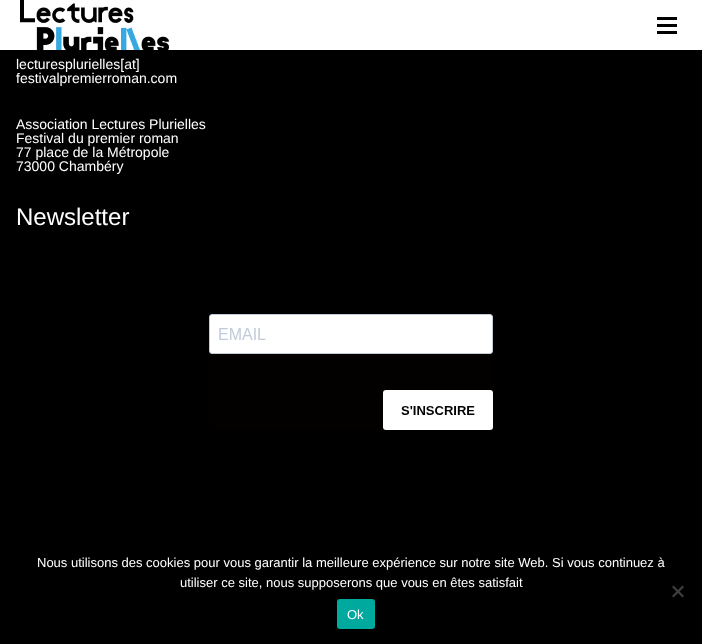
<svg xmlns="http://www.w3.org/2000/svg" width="702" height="644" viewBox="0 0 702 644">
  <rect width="100%" height="100%" fill="#000000"/>
  <rect x="0" y="0" width="702" height="50" fill="#ffffff"/>
  <image x="20" y="0" width="149" height="50" href="img1.png"/>
  <rect x="657" y="17" width="20" height="3" fill="#000000"/>
  <rect x="657" y="24" width="20" height="3" fill="#000000"/>
  <rect x="657" y="31" width="20" height="3" fill="#000000"/>
  <text x="16" y="69" font-family="Liberation Sans" font-size="14" fill="#ffffff">lecturesplurielles[at]</text>
  <text x="16" y="83" font-family="Liberation Sans" font-size="14" fill="#ffffff">festivalpremierroman.com</text>
  <text x="16" y="129" font-family="Liberation Sans" font-size="14" fill="#ffffff">Association Lectures Plurielles</text>
  <text x="16" y="143" font-family="Liberation Sans" font-size="14" fill="#ffffff">Festival du premier roman</text>
  <text x="16" y="157" font-family="Liberation Sans" font-size="14" fill="#ffffff">77 place de la Métropole</text>
  <text x="16" y="171" font-family="Liberation Sans" font-size="14" fill="#ffffff">73000 Chambéry</text>
  <text x="16" y="225" font-family="Liberation Sans" font-size="24" fill="#ffffff">Newsletter</text>
  <image x="209" y="314" width="284" height="116" href="img2.png"/>
  <text x="37" y="567" font-family="Liberation Sans" font-size="13" fill="#ffffff">Nous utilisons des cookies pour vous garantir la meilleure expérience sur notre site Web. Si vous continuez à</text>
  <text x="180" y="587" font-family="Liberation Sans" font-size="13" fill="#ffffff">utiliser ce site, nous supposerons que vous en êtes satisfait</text>
  <path d="M682.5 585.5L684 587L673.5 597.5L672 596Z" fill="#404040"/>
  <path d="M672 587L673.5 585.5L684 596L682.5 597.5Z" fill="#404040"/>
  <rect x="337" y="599" width="38" height="30" rx="3" fill="#00a99d"/>
  <text x="347" y="619" font-family="Liberation Sans" font-size="13" fill="#ffffff">Ok</text>
</svg>
